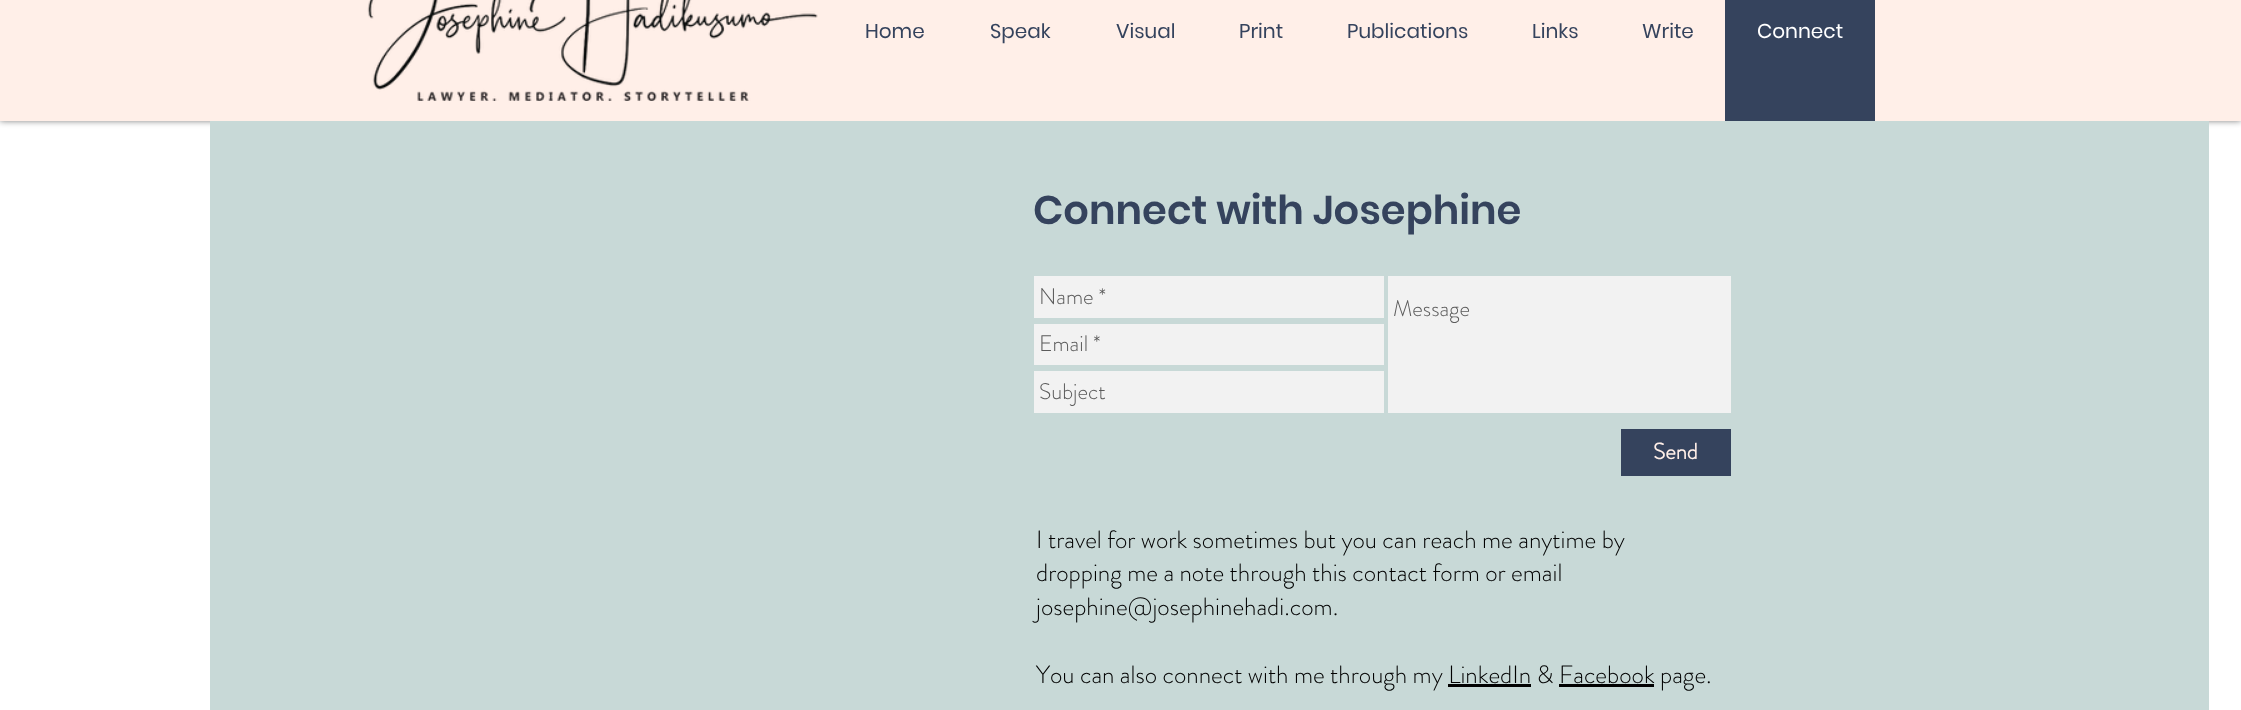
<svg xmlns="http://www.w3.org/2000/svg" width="2241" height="710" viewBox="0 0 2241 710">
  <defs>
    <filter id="blur1" x="-50%" y="-200%" width="200%" height="500%"><feGaussianBlur stdDeviation="3"/></filter>
  </defs>
  <rect width="100%" height="100%" fill="#ffffff"/>
  <rect x="0" y="-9" width="2241" height="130" fill="#000000" fill-opacity="0.5" filter="url(#blur1)"/>
  <rect x="0" y="0" width="2241" height="121" fill="#ffefe8"/>
  <image x="367" y="0" width="451" height="101" href="img1.png"/>
  <text x="865" y="38" font-family="Poppins" font-size="20" fill="#35435d">Home</text>
  <text x="990" y="38" font-family="Poppins" font-size="20" fill="#35435d">Speak</text>
  <text x="1116" y="38" font-family="Poppins" font-size="20" fill="#35435d">Visual</text>
  <text x="1239" y="38" font-family="Poppins" font-size="20" fill="#35435d">Print</text>
  <text x="1347" y="38" font-family="Poppins" font-size="20" fill="#35435d">Publications</text>
  <text x="1532" y="38" font-family="Poppins" font-size="20" fill="#35435d">Links</text>
  <text x="1642" y="38" font-family="Poppins" font-size="20" fill="#35435d">Write</text>
  <rect x="1725" y="0" width="150" height="121" fill="#35435d"/>
  <text x="1757" y="38" font-family="Poppins" font-size="20" fill="#ffffff">Connect</text>
  <rect x="210" y="121" width="1999" height="589" fill="#c8d9d7"/>
  <text x="1033" y="224" font-family="Poppins" font-size="40" font-weight="600" fill="#35435d">Connect with Josephine</text>
  <rect x="1034" y="276" width="350" height="42" fill="#f2f2f2"/>
  <text x="1039" y="304" font-family="'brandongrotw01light'" font-size="22.5" font-weight="300" fill="#5b5b5b">Name *</text>
  <rect x="1388" y="276" width="343" height="137" fill="#f2f2f2"/>
  <text x="1393" y="316" font-family="'brandongrotw01light'" font-size="22.5" font-weight="300" fill="#5b5b5b">Message</text>
  <rect x="1034" y="324" width="350" height="41" fill="#f2f2f2"/>
  <text x="1039" y="351" font-family="'brandongrotw01light'" font-size="22.5" font-weight="300" fill="#5b5b5b">Email *</text>
  <rect x="1034" y="371" width="350" height="42" fill="#f2f2f2"/>
  <text x="1039" y="399" font-family="'brandongrotw01light'" font-size="22.5" font-weight="300" fill="#5b5b5b">Subject</text>
  <rect x="1621" y="429" width="110" height="47" fill="#35435d"/>
  <text x="1653" y="459" font-family="'brandongrotw01light'" font-size="22.5" font-weight="bold" fill="#ffefe8">Send</text>
  <text x="1036" y="548" font-family="'brandongrotw01light'" font-size="25" font-weight="300" fill="#010101">I travel for work sometimes but you can reach me anytime by</text>
  <text x="1036" y="581" font-family="'brandongrotw01light'" font-size="25" font-weight="300" fill="#010101">dropping me a note through this contact form or email</text>
  <text x="1036" y="615" font-family="'brandongrotw01light'" font-size="25" font-weight="300" fill="#010101">josephine@josephinehadi.com.</text>
  <text x="1036" y="683" font-family="'brandongrotw01light'" font-size="25" font-weight="300" fill="#010101">You can also connect with me through my LinkedIn &amp; Facebook page.</text>
  <rect x="1448" y="684" width="83" height="3" fill="#010101"/>
  <rect x="1559" y="684" width="95" height="3" fill="#010101"/>
</svg>
